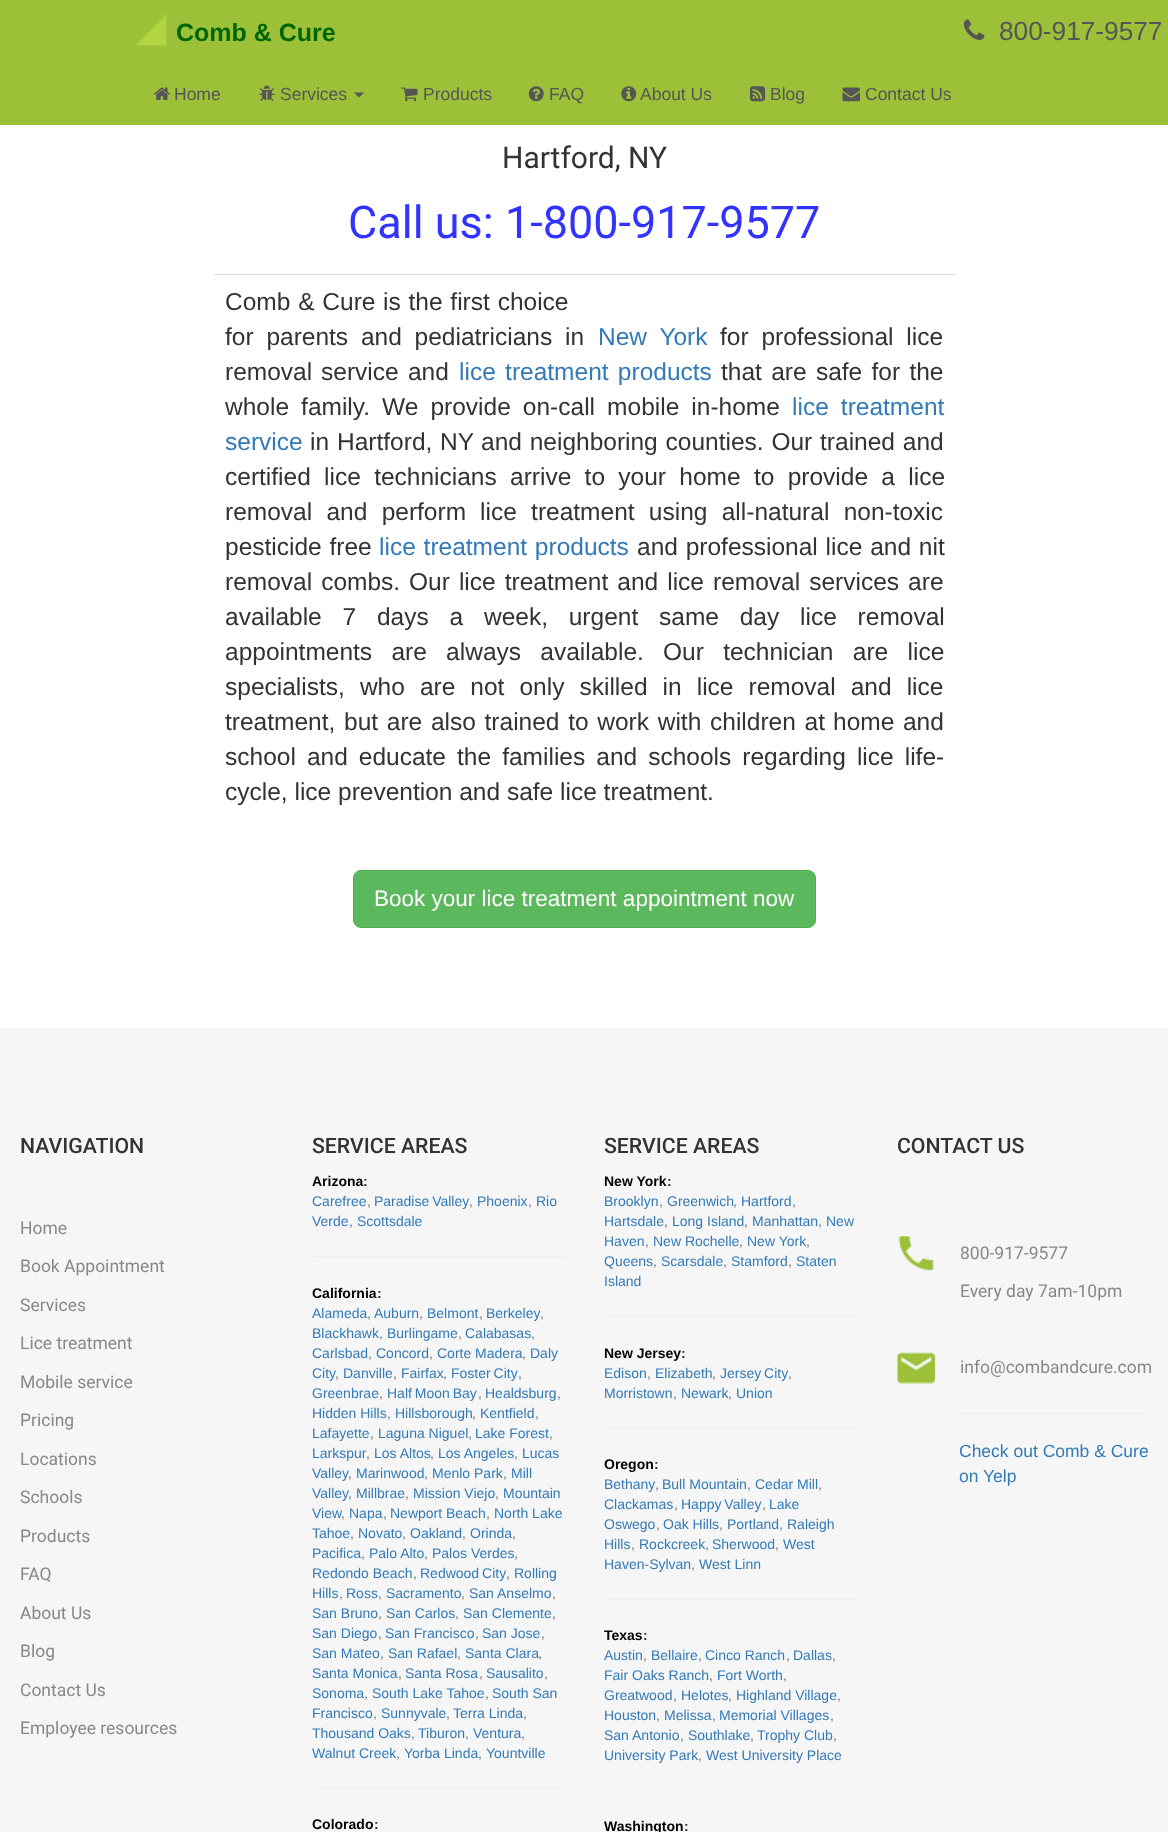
<svg xmlns="http://www.w3.org/2000/svg" width="1168" height="1832" viewBox="0 0 1168 1832">
  <rect width="100%" height="100%" fill="#ffffff"/>
  <rect x="0" y="0" width="1168" height="125" fill="#9cc038"/>
  <image x="963" y="19" width="22" height="21" href="img1.png"/>
  <text x="999" y="40" font-family="Liberation Sans" font-size="26.25" fill="#555555">800-917-9577</text>
  <image x="154" y="87" width="16" height="13" href="img2.png"/>
  <text x="174" y="100" font-family="Liberation Sans" font-size="17.5" fill="#555555">Home</text>
  <image x="259" y="85" width="16" height="16" href="img3.png"/>
  <text x="280" y="100" font-family="Liberation Sans" font-size="17.5" fill="#555555">Services</text>
  <path d="M354 92.5H364L359 97.5Z" fill="#555555"/>
  <image x="401" y="87" width="17" height="15" href="img4.png"/>
  <text x="423" y="100" font-family="Liberation Sans" font-size="17.5" fill="#555555">Products</text>
  <image x="528" y="86" width="16" height="16" href="img5.png"/>
  <text x="549" y="100" font-family="Liberation Sans" font-size="17.5" fill="#555555">FAQ</text>
  <image x="621" y="86" width="16" height="16" href="img6.png"/>
  <text x="640" y="100" font-family="Liberation Sans" font-size="17.5" fill="#555555">About Us</text>
  <image x="750" y="86" width="15" height="16" href="img7.png"/>
  <text x="770" y="100" font-family="Liberation Sans" font-size="17.5" fill="#555555">Blog</text>
  <image x="842" y="87" width="18" height="15" href="img8.png"/>
  <text x="865" y="100" font-family="Liberation Sans" font-size="17.5" fill="#555555">Contact Us</text>
  <image x="135" y="14" width="32" height="32" href="img9.png"/>
  <text x="176" y="41" font-family="Liberation Sans" font-size="25" font-weight="bold" fill="#006600">Comb &amp; Cure</text>
  <text x="502" y="168" font-family="Roboto" font-size="30" fill="#333333">Hartford, NY</text>
  <text x="348" y="238" font-family="Roboto" font-size="45" fill="#3333ff">Call us: 1-800-917-9577</text>
  <rect x="214" y="274" width="741" height="1" fill="#dddddd"/>
  <text x="225" y="310" word-spacing="1" font-family="Liberation Sans" font-size="24.5" fill="#333333">Comb &amp; Cure</text>
  <text x="383" y="310" word-spacing="1" font-family="Liberation Sans" font-size="24.5" fill="#333333">is the first choice</text>
  <text x="225" y="345" word-spacing="6" font-family="Liberation Sans" font-size="24.5" fill="#333333">for parents and pediatricians in</text>
  <text x="598" y="345" word-spacing="6" font-family="Liberation Sans" font-size="24.5" fill="#337ab7">New York</text>
  <text x="720" y="345" word-spacing="6" font-family="Liberation Sans" font-size="24.5" fill="#333333">for professional lice</text>
  <text x="225" y="380" font-family="Liberation Sans" font-size="24.5" fill="#333333">removal</text>
  <text x="321" y="380" word-spacing="2.5" font-family="Liberation Sans" font-size="24.5" fill="#333333">service and</text>
  <text x="459" y="380" word-spacing="2.5" font-family="Liberation Sans" font-size="24.5" fill="#337ab7">lice treatment products</text>
  <text x="721" y="380" word-spacing="2.5" font-family="Liberation Sans" font-size="24.5" fill="#333333">that are safe for the</text>
  <text x="225" y="415" word-spacing="5.25" font-family="Liberation Sans" font-size="24.5" fill="#333333">whole family. We provide on-call mobile in-home</text>
  <text x="792" y="415" word-spacing="5.25" font-family="Liberation Sans" font-size="24.5" fill="#337ab7">lice treatment</text>
  <text x="225" y="450" font-family="Liberation Sans" font-size="24.5" fill="#337ab7">service</text>
  <text x="310" y="450" font-family="Liberation Sans" font-size="24.5" fill="#333333">in</text>
  <text x="337" y="450" font-family="Liberation Sans" font-size="24.5" fill="#333333">Hartford,</text>
  <text x="440" y="450" font-family="Liberation Sans" font-size="24.5" fill="#333333">NY</text>
  <text x="481" y="450" word-spacing="1" font-family="Liberation Sans" font-size="24.5" fill="#333333">and neighboring counties. Our trained and</text>
  <text x="225" y="485" word-spacing="6.5" font-family="Liberation Sans" font-size="24.5" fill="#333333">certified lice technicians arrive to your home to provide a lice</text>
  <text x="225" y="520" word-spacing="7.5" font-family="Liberation Sans" font-size="24.5" fill="#333333">removal and perform</text>
  <text x="480" y="520" word-spacing="7.5" font-family="Liberation Sans" font-size="24.5" fill="#333333">lice treatment using all-natural non-toxic</text>
  <text x="225" y="555" word-spacing="1" font-family="Liberation Sans" font-size="24.5" fill="#333333">pesticide free</text>
  <text x="379" y="555" word-spacing="1" font-family="Liberation Sans" font-size="24.5" fill="#337ab7">lice treatment products</text>
  <text x="637" y="555" word-spacing="1" font-family="Liberation Sans" font-size="24.5" fill="#333333">and professional lice and nit</text>
  <text x="225" y="590" word-spacing="2.25" font-family="Liberation Sans" font-size="24.5" fill="#333333">removal combs.</text>
  <text x="409" y="590" word-spacing="2.25" font-family="Liberation Sans" font-size="24.5" fill="#333333">Our lice treatment and lice removal services are</text>
  <text x="225" y="625" word-spacing="14" font-family="Liberation Sans" font-size="24.5" fill="#333333">available 7 days a week, urgent same day lice removal</text>
  <text x="225" y="660" word-spacing="12.5" font-family="Liberation Sans" font-size="24.5" fill="#333333">appointments are always available.</text>
  <text x="663" y="660" word-spacing="12.5" font-family="Liberation Sans" font-size="24.5" fill="#333333">Our technician are lice</text>
  <text x="225" y="695" word-spacing="8.25" font-family="Liberation Sans" font-size="24.5" fill="#333333">specialists, who are not only skilled in lice removal and lice</text>
  <text x="225" y="730" word-spacing="1.9" font-family="Liberation Sans" font-size="24.5" fill="#333333">treatment, but are also trained to work with children at</text>
  <text x="833" y="730" word-spacing="1.9" font-family="Liberation Sans" font-size="24.5" fill="#333333">home and</text>
  <text x="225" y="765" word-spacing="4.25" font-family="Liberation Sans" font-size="24.5" fill="#333333">school and educate the families and schools regarding lice life-</text>
  <text x="225" y="800" font-family="Liberation Sans" font-size="24.5" fill="#333333">cycle, lice prevention and safe lice treatment.</text>
  <rect x="353.5" y="870.5" width="462" height="57" rx="7.5" fill="#5cb85c" stroke="#4cae4c"/>
  <text x="374" y="906" font-family="Liberation Sans" font-size="22.5" fill="#ffffff">Book your lice treatment appointment now</text>
  <rect x="0" y="1028" width="1168" height="804" fill="#f6f6f6"/>
  <text x="20" y="1153" font-family="Roboto" font-size="21.25" font-weight="500" fill="#333333">NAVIGATION</text>
  <text x="20" y="1234" font-family="Roboto" font-size="17.5" fill="#888888">Home</text>
  <text x="20" y="1272" font-family="Roboto" font-size="17.5" fill="#888888">Book Appointment</text>
  <text x="20" y="1311" font-family="Roboto" font-size="17.5" fill="#888888">Services</text>
  <text x="20" y="1349" font-family="Roboto" font-size="17.5" fill="#888888">Lice treatment</text>
  <text x="20" y="1388" font-family="Roboto" font-size="17.5" fill="#888888">Mobile service</text>
  <text x="20" y="1426" font-family="Roboto" font-size="17.5" fill="#888888">Pricing</text>
  <text x="20" y="1465" font-family="Roboto" font-size="17.5" fill="#888888">Locations</text>
  <text x="20" y="1503" font-family="Roboto" font-size="17.5" fill="#888888">Schools</text>
  <text x="20" y="1542" font-family="Roboto" font-size="17.5" fill="#888888">Products</text>
  <text x="20" y="1580" font-family="Roboto" font-size="17.5" fill="#888888">FAQ</text>
  <text x="20" y="1619" font-family="Roboto" font-size="17.5" fill="#888888">About Us</text>
  <text x="20" y="1657" font-family="Roboto" font-size="17.5" fill="#888888">Blog</text>
  <text x="20" y="1696" font-family="Roboto" font-size="17.5" fill="#888888">Contact Us</text>
  <text x="20" y="1734" font-family="Roboto" font-size="17.5" fill="#888888">Employee resources</text>
  <text x="312" y="1153" font-family="Roboto" font-size="21.25" font-weight="500" fill="#333333">SERVICE AREAS</text>
  <text x="312" y="1186" font-family="Liberation Sans" font-size="14" font-weight="bold" fill="#000000">Arizona</text>
  <text x="363" y="1186" font-family="Liberation Sans" font-size="14" font-weight="bold" fill="#333333">:</text>
  <text x="312" y="1206" font-family="Liberation Sans" font-size="14" fill="#337ab7">Carefree</text>
  <text x="367" y="1206" font-family="Liberation Sans" font-size="14" fill="#777777">,</text>
  <text x="374" y="1206" word-spacing="-1" font-family="Liberation Sans" font-size="14" fill="#337ab7">Paradise Valley</text>
  <text x="469" y="1206" font-family="Liberation Sans" font-size="14" fill="#777777">,</text>
  <text x="477" y="1206" font-family="Liberation Sans" font-size="14" fill="#337ab7">Phoenix</text>
  <text x="528" y="1206" font-family="Liberation Sans" font-size="14" fill="#777777">,</text>
  <text x="536" y="1206" font-family="Liberation Sans" font-size="14" fill="#337ab7">Rio</text>
  <text x="312" y="1226" font-family="Liberation Sans" font-size="14" fill="#337ab7">Verde</text>
  <text x="349" y="1226" font-family="Liberation Sans" font-size="14" fill="#777777">,</text>
  <text x="357" y="1226" font-family="Liberation Sans" font-size="14" fill="#337ab7">Scottsdale</text>
  <rect x="313" y="1256" width="252" height="1" fill="#eeeeee"/>
  <text x="312" y="1298" font-family="Liberation Sans" font-size="14" font-weight="bold" fill="#000000">California</text>
  <text x="377" y="1298" font-family="Liberation Sans" font-size="14" font-weight="bold" fill="#333333">:</text>
  <text x="312" y="1318" font-family="Liberation Sans" font-size="14" fill="#337ab7">Alameda</text>
  <text x="367" y="1318" font-family="Liberation Sans" font-size="14" fill="#777777">,</text>
  <text x="374" y="1318" font-family="Liberation Sans" font-size="14" fill="#337ab7">Auburn</text>
  <text x="419" y="1318" font-family="Liberation Sans" font-size="14" fill="#777777">,</text>
  <text x="427" y="1318" font-family="Liberation Sans" font-size="14" fill="#337ab7">Belmont</text>
  <text x="479" y="1318" font-family="Liberation Sans" font-size="14" fill="#777777">,</text>
  <text x="486" y="1318" font-family="Liberation Sans" font-size="14" fill="#337ab7">Berkeley</text>
  <text x="540" y="1318" font-family="Liberation Sans" font-size="14" fill="#777777">,</text>
  <text x="312" y="1338" font-family="Liberation Sans" font-size="14" fill="#337ab7">Blackhawk</text>
  <text x="379" y="1338" font-family="Liberation Sans" font-size="14" fill="#777777">,</text>
  <text x="387" y="1338" font-family="Liberation Sans" font-size="14" fill="#337ab7">Burlingame</text>
  <text x="458" y="1338" font-family="Liberation Sans" font-size="14" fill="#777777">,</text>
  <text x="465" y="1338" font-family="Liberation Sans" font-size="14" fill="#337ab7">Calabasas</text>
  <text x="531" y="1338" font-family="Liberation Sans" font-size="14" fill="#777777">,</text>
  <text x="312" y="1358" font-family="Liberation Sans" font-size="14" fill="#337ab7">Carlsbad</text>
  <text x="368" y="1358" font-family="Liberation Sans" font-size="14" fill="#777777">,</text>
  <text x="376" y="1358" font-family="Liberation Sans" font-size="14" fill="#337ab7">Concord</text>
  <text x="429" y="1358" font-family="Liberation Sans" font-size="14" fill="#777777">,</text>
  <text x="437" y="1358" font-family="Liberation Sans" font-size="14" fill="#337ab7">Corte Madera</text>
  <text x="522" y="1358" font-family="Liberation Sans" font-size="14" fill="#777777">,</text>
  <text x="530" y="1358" font-family="Liberation Sans" font-size="14" fill="#337ab7">Daly</text>
  <text x="312" y="1378" font-family="Liberation Sans" font-size="14" fill="#337ab7">City</text>
  <text x="343" y="1378" font-family="Liberation Sans" font-size="14" fill="#337ab7">Danville</text>
  <text x="401" y="1378" font-family="Liberation Sans" font-size="14" fill="#337ab7">Fairfax</text>
  <text x="451" y="1378" word-spacing="-1" font-family="Liberation Sans" font-size="14" fill="#337ab7">Foster City</text>
  <text x="335" y="1378" font-family="Liberation Sans" font-size="14" fill="#777777">,</text>
  <text x="393" y="1378" font-family="Liberation Sans" font-size="14" fill="#777777">,</text>
  <text x="443" y="1378" font-family="Liberation Sans" font-size="14" fill="#777777">,</text>
  <text x="518" y="1378" font-family="Liberation Sans" font-size="14" fill="#777777">,</text>
  <text x="312" y="1398" font-family="Liberation Sans" font-size="14" fill="#337ab7">Greenbrae</text>
  <text x="379" y="1398" font-family="Liberation Sans" font-size="14" fill="#777777">,</text>
  <text x="387" y="1398" word-spacing="-1" font-family="Liberation Sans" font-size="14" fill="#337ab7">Half Moon Bay</text>
  <text x="478" y="1398" font-family="Liberation Sans" font-size="14" fill="#777777">,</text>
  <text x="485" y="1398" font-family="Liberation Sans" font-size="14" fill="#337ab7">Healdsburg</text>
  <text x="557" y="1398" font-family="Liberation Sans" font-size="14" fill="#777777">,</text>
  <text x="312" y="1418" font-family="Liberation Sans" font-size="14" fill="#337ab7">Hidden Hills</text>
  <text x="387" y="1418" font-family="Liberation Sans" font-size="14" fill="#777777">,</text>
  <text x="395" y="1418" font-family="Liberation Sans" font-size="14" fill="#337ab7">Hillsborough</text>
  <text x="472" y="1418" font-family="Liberation Sans" font-size="14" fill="#777777">,</text>
  <text x="480" y="1418" font-family="Liberation Sans" font-size="14" fill="#337ab7">Kentfield</text>
  <text x="535" y="1418" font-family="Liberation Sans" font-size="14" fill="#777777">,</text>
  <text x="312" y="1438" font-family="Liberation Sans" font-size="14" fill="#337ab7">Lafayette</text>
  <text x="370" y="1438" font-family="Liberation Sans" font-size="14" fill="#777777">,</text>
  <text x="378" y="1438" font-family="Liberation Sans" font-size="14" fill="#337ab7">Laguna Niguel</text>
  <text x="468" y="1438" font-family="Liberation Sans" font-size="14" fill="#777777">,</text>
  <text x="475" y="1438" font-family="Liberation Sans" font-size="14" fill="#337ab7">Lake Forest</text>
  <text x="549" y="1438" font-family="Liberation Sans" font-size="14" fill="#777777">,</text>
  <text x="312" y="1458" font-family="Liberation Sans" font-size="14" fill="#337ab7">Larkspur</text>
  <text x="366" y="1458" font-family="Liberation Sans" font-size="14" fill="#777777">,</text>
  <text x="374" y="1458" font-family="Liberation Sans" font-size="14" fill="#337ab7">Los Altos</text>
  <text x="430" y="1458" font-family="Liberation Sans" font-size="14" fill="#777777">,</text>
  <text x="438" y="1458" font-family="Liberation Sans" font-size="14" fill="#337ab7">Los Angeles</text>
  <text x="514" y="1458" font-family="Liberation Sans" font-size="14" fill="#777777">,</text>
  <text x="522" y="1458" font-family="Liberation Sans" font-size="14" fill="#337ab7">Lucas</text>
  <text x="312" y="1478" font-family="Liberation Sans" font-size="14" fill="#337ab7">Valley</text>
  <text x="356" y="1478" font-family="Liberation Sans" font-size="14" fill="#337ab7">Marinwood</text>
  <text x="432" y="1478" font-family="Liberation Sans" font-size="14" fill="#337ab7">Menlo Park</text>
  <text x="511" y="1478" font-family="Liberation Sans" font-size="14" fill="#337ab7">Mill</text>
  <text x="348" y="1478" font-family="Liberation Sans" font-size="14" fill="#777777">,</text>
  <text x="424" y="1478" font-family="Liberation Sans" font-size="14" fill="#777777">,</text>
  <text x="503" y="1478" font-family="Liberation Sans" font-size="14" fill="#777777">,</text>
  <text x="312" y="1498" font-family="Liberation Sans" font-size="14" fill="#337ab7">Valley</text>
  <text x="356" y="1498" font-family="Liberation Sans" font-size="14" fill="#337ab7">Millbrae</text>
  <text x="413" y="1498" font-family="Liberation Sans" font-size="14" fill="#337ab7">Mission Viejo</text>
  <text x="503" y="1498" font-family="Liberation Sans" font-size="14" fill="#337ab7">Mountain</text>
  <text x="348" y="1498" font-family="Liberation Sans" font-size="14" fill="#777777">,</text>
  <text x="405" y="1498" font-family="Liberation Sans" font-size="14" fill="#777777">,</text>
  <text x="495" y="1498" font-family="Liberation Sans" font-size="14" fill="#777777">,</text>
  <text x="312" y="1518" font-family="Liberation Sans" font-size="14" fill="#337ab7">View</text>
  <text x="341" y="1518" font-family="Liberation Sans" font-size="14" fill="#777777">,</text>
  <text x="349" y="1518" font-family="Liberation Sans" font-size="14" fill="#337ab7">Napa</text>
  <text x="383" y="1518" font-family="Liberation Sans" font-size="14" fill="#777777">,</text>
  <text x="390" y="1518" font-family="Liberation Sans" font-size="14" fill="#337ab7">Newport Beach</text>
  <text x="486" y="1518" font-family="Liberation Sans" font-size="14" fill="#777777">,</text>
  <text x="494" y="1518" font-family="Liberation Sans" font-size="14" fill="#337ab7">North Lake</text>
  <text x="312" y="1538" font-family="Liberation Sans" font-size="14" fill="#337ab7">Tahoe</text>
  <text x="350" y="1538" font-family="Liberation Sans" font-size="14" fill="#777777">,</text>
  <text x="358" y="1538" font-family="Liberation Sans" font-size="14" fill="#337ab7">Novato</text>
  <text x="402" y="1538" font-family="Liberation Sans" font-size="14" fill="#777777">,</text>
  <text x="410" y="1538" font-family="Liberation Sans" font-size="14" fill="#337ab7">Oakland</text>
  <text x="462" y="1538" font-family="Liberation Sans" font-size="14" fill="#777777">,</text>
  <text x="470" y="1538" font-family="Liberation Sans" font-size="14" fill="#337ab7">Orinda</text>
  <text x="512" y="1538" font-family="Liberation Sans" font-size="14" fill="#777777">,</text>
  <text x="312" y="1558" font-family="Liberation Sans" font-size="14" fill="#337ab7">Pacifica</text>
  <text x="361" y="1558" font-family="Liberation Sans" font-size="14" fill="#777777">,</text>
  <text x="369" y="1558" font-family="Liberation Sans" font-size="14" fill="#337ab7">Palo Alto</text>
  <text x="424" y="1558" font-family="Liberation Sans" font-size="14" fill="#777777">,</text>
  <text x="432" y="1558" font-family="Liberation Sans" font-size="14" fill="#337ab7">Palos Verdes</text>
  <text x="514" y="1558" font-family="Liberation Sans" font-size="14" fill="#777777">,</text>
  <text x="312" y="1578" font-family="Liberation Sans" font-size="14" fill="#337ab7">Redondo Beach</text>
  <text x="413" y="1578" font-family="Liberation Sans" font-size="14" fill="#777777">,</text>
  <text x="420" y="1578" word-spacing="-1" font-family="Liberation Sans" font-size="14" fill="#337ab7">Redwood City</text>
  <text x="506" y="1578" font-family="Liberation Sans" font-size="14" fill="#777777">,</text>
  <text x="514" y="1578" font-family="Liberation Sans" font-size="14" fill="#337ab7">Rolling</text>
  <text x="312" y="1598" font-family="Liberation Sans" font-size="14" fill="#337ab7">Hills</text>
  <text x="339" y="1598" font-family="Liberation Sans" font-size="14" fill="#777777">,</text>
  <text x="346" y="1598" font-family="Liberation Sans" font-size="14" fill="#337ab7">Ross</text>
  <text x="378" y="1598" font-family="Liberation Sans" font-size="14" fill="#777777">,</text>
  <text x="386" y="1598" font-family="Liberation Sans" font-size="14" fill="#337ab7">Sacramento</text>
  <text x="461" y="1598" font-family="Liberation Sans" font-size="14" fill="#777777">,</text>
  <text x="469" y="1598" font-family="Liberation Sans" font-size="14" fill="#337ab7">San Anselmo</text>
  <text x="552" y="1598" font-family="Liberation Sans" font-size="14" fill="#777777">,</text>
  <text x="312" y="1618" font-family="Liberation Sans" font-size="14" fill="#337ab7">San Bruno</text>
  <text x="378" y="1618" font-family="Liberation Sans" font-size="14" fill="#777777">,</text>
  <text x="386" y="1618" font-family="Liberation Sans" font-size="14" fill="#337ab7">San Carlos</text>
  <text x="455" y="1618" font-family="Liberation Sans" font-size="14" fill="#777777">,</text>
  <text x="463" y="1618" font-family="Liberation Sans" font-size="14" fill="#337ab7">San Clemente</text>
  <text x="552" y="1618" font-family="Liberation Sans" font-size="14" fill="#777777">,</text>
  <text x="312" y="1638" font-family="Liberation Sans" font-size="14" fill="#337ab7">San Diego</text>
  <text x="378" y="1638" font-family="Liberation Sans" font-size="14" fill="#777777">,</text>
  <text x="385" y="1638" font-family="Liberation Sans" font-size="14" fill="#337ab7">San Francisco</text>
  <text x="475" y="1638" font-family="Liberation Sans" font-size="14" fill="#777777">,</text>
  <text x="482" y="1638" font-family="Liberation Sans" font-size="14" fill="#337ab7">San Jose</text>
  <text x="541" y="1638" font-family="Liberation Sans" font-size="14" fill="#777777">,</text>
  <text x="312" y="1658" font-family="Liberation Sans" font-size="14" fill="#337ab7">San Mateo</text>
  <text x="380" y="1658" font-family="Liberation Sans" font-size="14" fill="#777777">,</text>
  <text x="388" y="1658" font-family="Liberation Sans" font-size="14" fill="#337ab7">San Rafael</text>
  <text x="457" y="1658" font-family="Liberation Sans" font-size="14" fill="#777777">,</text>
  <text x="465" y="1658" font-family="Liberation Sans" font-size="14" fill="#337ab7">Santa Clara</text>
  <text x="538" y="1658" font-family="Liberation Sans" font-size="14" fill="#777777">,</text>
  <text x="312" y="1678" font-family="Liberation Sans" font-size="14" fill="#337ab7">Santa Monica</text>
  <text x="398" y="1678" font-family="Liberation Sans" font-size="14" fill="#777777">,</text>
  <text x="405" y="1678" font-family="Liberation Sans" font-size="14" fill="#337ab7">Santa Rosa</text>
  <text x="479" y="1678" font-family="Liberation Sans" font-size="14" fill="#777777">,</text>
  <text x="486" y="1678" font-family="Liberation Sans" font-size="14" fill="#337ab7">Sausalito</text>
  <text x="544" y="1678" font-family="Liberation Sans" font-size="14" fill="#777777">,</text>
  <text x="312" y="1698" font-family="Liberation Sans" font-size="14" fill="#337ab7">Sonoma</text>
  <text x="364" y="1698" font-family="Liberation Sans" font-size="14" fill="#777777">,</text>
  <text x="372" y="1698" font-family="Liberation Sans" font-size="14" fill="#337ab7">South Lake Tahoe</text>
  <text x="485" y="1698" font-family="Liberation Sans" font-size="14" fill="#777777">,</text>
  <text x="492" y="1698" font-family="Liberation Sans" font-size="14" fill="#337ab7">South San</text>
  <text x="312" y="1718" font-family="Liberation Sans" font-size="14" fill="#337ab7">Francisco</text>
  <text x="373" y="1718" font-family="Liberation Sans" font-size="14" fill="#777777">,</text>
  <text x="381" y="1718" font-family="Liberation Sans" font-size="14" fill="#337ab7">Sunnyvale</text>
  <text x="446" y="1718" font-family="Liberation Sans" font-size="14" fill="#777777">,</text>
  <text x="453" y="1718" font-family="Liberation Sans" font-size="14" fill="#337ab7">Terra Linda</text>
  <text x="523" y="1718" font-family="Liberation Sans" font-size="14" fill="#777777">,</text>
  <text x="312" y="1738" font-family="Liberation Sans" font-size="14" fill="#337ab7">Thousand Oaks</text>
  <text x="411" y="1738" font-family="Liberation Sans" font-size="14" fill="#777777">,</text>
  <text x="418" y="1738" font-family="Liberation Sans" font-size="14" fill="#337ab7">Tiburon</text>
  <text x="465" y="1738" font-family="Liberation Sans" font-size="14" fill="#777777">,</text>
  <text x="473" y="1738" font-family="Liberation Sans" font-size="14" fill="#337ab7">Ventura</text>
  <text x="521" y="1738" font-family="Liberation Sans" font-size="14" fill="#777777">,</text>
  <text x="312" y="1758" font-family="Liberation Sans" font-size="14" fill="#337ab7">Walnut Creek</text>
  <text x="396" y="1758" font-family="Liberation Sans" font-size="14" fill="#777777">,</text>
  <text x="404" y="1758" font-family="Liberation Sans" font-size="14" fill="#337ab7">Yorba Linda</text>
  <text x="478" y="1758" font-family="Liberation Sans" font-size="14" fill="#777777">,</text>
  <text x="486" y="1758" font-family="Liberation Sans" font-size="14" fill="#337ab7">Yountville</text>
  <rect x="313" y="1788" width="252" height="1" fill="#eeeeee"/>
  <text x="312" y="1829" font-family="Liberation Sans" font-size="14" font-weight="bold" fill="#000000">Colorado</text>
  <text x="374" y="1829" font-family="Liberation Sans" font-size="14" font-weight="bold" fill="#333333">:</text>
  <text x="604" y="1153" font-family="Roboto" font-size="21.25" font-weight="500" fill="#333333">SERVICE AREAS</text>
  <text x="604" y="1186" font-family="Liberation Sans" font-size="14" font-weight="bold" fill="#000000">New York</text>
  <text x="667" y="1186" font-family="Liberation Sans" font-size="14" font-weight="bold" fill="#333333">:</text>
  <text x="604" y="1206" font-family="Liberation Sans" font-size="14" fill="#337ab7">Brooklyn</text>
  <text x="659" y="1206" font-family="Liberation Sans" font-size="14" fill="#777777">,</text>
  <text x="667" y="1206" font-family="Liberation Sans" font-size="14" fill="#337ab7">Greenwich</text>
  <text x="733" y="1206" font-family="Liberation Sans" font-size="14" fill="#777777">,</text>
  <text x="741" y="1206" font-family="Liberation Sans" font-size="14" fill="#337ab7">Hartford</text>
  <text x="792" y="1206" font-family="Liberation Sans" font-size="14" fill="#777777">,</text>
  <text x="604" y="1226" font-family="Liberation Sans" font-size="14" fill="#337ab7">Hartsdale</text>
  <text x="664" y="1226" font-family="Liberation Sans" font-size="14" fill="#777777">,</text>
  <text x="672" y="1226" font-family="Liberation Sans" font-size="14" fill="#337ab7">Long Island</text>
  <text x="744" y="1226" font-family="Liberation Sans" font-size="14" fill="#777777">,</text>
  <text x="752" y="1226" font-family="Liberation Sans" font-size="14" fill="#337ab7">Manhattan</text>
  <text x="818" y="1226" font-family="Liberation Sans" font-size="14" fill="#777777">,</text>
  <text x="826" y="1226" font-family="Liberation Sans" font-size="14" fill="#337ab7">New</text>
  <text x="604" y="1246" font-family="Liberation Sans" font-size="14" fill="#337ab7">Haven</text>
  <text x="645" y="1246" font-family="Liberation Sans" font-size="14" fill="#777777">,</text>
  <text x="653" y="1246" font-family="Liberation Sans" font-size="14" fill="#337ab7">New Rochelle</text>
  <text x="739" y="1246" font-family="Liberation Sans" font-size="14" fill="#777777">,</text>
  <text x="747" y="1246" font-family="Liberation Sans" font-size="14" fill="#337ab7">New York</text>
  <text x="806" y="1246" font-family="Liberation Sans" font-size="14" fill="#777777">,</text>
  <text x="604" y="1266" font-family="Liberation Sans" font-size="14" fill="#337ab7">Queens</text>
  <text x="653" y="1266" font-family="Liberation Sans" font-size="14" fill="#777777">,</text>
  <text x="661" y="1266" font-family="Liberation Sans" font-size="14" fill="#337ab7">Scarsdale</text>
  <text x="723" y="1266" font-family="Liberation Sans" font-size="14" fill="#777777">,</text>
  <text x="731" y="1266" font-family="Liberation Sans" font-size="14" fill="#337ab7">Stamford</text>
  <text x="788" y="1266" font-family="Liberation Sans" font-size="14" fill="#777777">,</text>
  <text x="796" y="1266" font-family="Liberation Sans" font-size="14" fill="#337ab7">Staten</text>
  <text x="604" y="1286" font-family="Liberation Sans" font-size="14" fill="#337ab7">Island</text>
  <rect x="605" y="1316" width="251" height="1" fill="#eeeeee"/>
  <text x="604" y="1358" font-family="Liberation Sans" font-size="14" font-weight="bold" fill="#000000">New Jersey</text>
  <text x="681" y="1358" font-family="Liberation Sans" font-size="14" font-weight="bold" fill="#333333">:</text>
  <text x="604" y="1378" font-family="Liberation Sans" font-size="14" fill="#337ab7">Edison</text>
  <text x="647" y="1378" font-family="Liberation Sans" font-size="14" fill="#777777">,</text>
  <text x="655" y="1378" font-family="Liberation Sans" font-size="14" fill="#337ab7">Elizabeth</text>
  <text x="712" y="1378" font-family="Liberation Sans" font-size="14" fill="#777777">,</text>
  <text x="720" y="1378" word-spacing="-1" font-family="Liberation Sans" font-size="14" fill="#337ab7">Jersey City</text>
  <text x="788" y="1378" font-family="Liberation Sans" font-size="14" fill="#777777">,</text>
  <text x="604" y="1398" font-family="Liberation Sans" font-size="14" fill="#337ab7">Morristown</text>
  <text x="673" y="1398" font-family="Liberation Sans" font-size="14" fill="#777777">,</text>
  <text x="681" y="1398" font-family="Liberation Sans" font-size="14" fill="#337ab7">Newark</text>
  <text x="728" y="1398" font-family="Liberation Sans" font-size="14" fill="#777777">,</text>
  <text x="736" y="1398" font-family="Liberation Sans" font-size="14" fill="#337ab7">Union</text>
  <rect x="605" y="1428" width="251" height="1" fill="#eeeeee"/>
  <text x="604" y="1469" font-family="Liberation Sans" font-size="14" font-weight="bold" fill="#000000">Oregon</text>
  <text x="654" y="1469" font-family="Liberation Sans" font-size="14" font-weight="bold" fill="#333333">:</text>
  <text x="604" y="1489" font-family="Liberation Sans" font-size="14" fill="#337ab7">Bethany</text>
  <text x="655" y="1489" font-family="Liberation Sans" font-size="14" fill="#777777">,</text>
  <text x="662" y="1489" font-family="Liberation Sans" font-size="14" fill="#337ab7">Bull Mountain</text>
  <text x="747" y="1489" font-family="Liberation Sans" font-size="14" fill="#777777">,</text>
  <text x="755" y="1489" font-family="Liberation Sans" font-size="14" fill="#337ab7">Cedar Mill</text>
  <text x="818" y="1489" font-family="Liberation Sans" font-size="14" fill="#777777">,</text>
  <text x="604" y="1509" font-family="Liberation Sans" font-size="14" fill="#337ab7">Clackamas</text>
  <text x="674" y="1509" font-family="Liberation Sans" font-size="14" fill="#777777">,</text>
  <text x="681" y="1509" word-spacing="-1" font-family="Liberation Sans" font-size="14" fill="#337ab7">Happy Valley</text>
  <text x="762" y="1509" font-family="Liberation Sans" font-size="14" fill="#777777">,</text>
  <text x="769" y="1509" font-family="Liberation Sans" font-size="14" fill="#337ab7">Lake</text>
  <text x="604" y="1529" font-family="Liberation Sans" font-size="14" fill="#337ab7">Oswego</text>
  <text x="656" y="1529" font-family="Liberation Sans" font-size="14" fill="#777777">,</text>
  <text x="663" y="1529" font-family="Liberation Sans" font-size="14" fill="#337ab7">Oak Hills</text>
  <text x="719" y="1529" font-family="Liberation Sans" font-size="14" fill="#777777">,</text>
  <text x="727" y="1529" font-family="Liberation Sans" font-size="14" fill="#337ab7">Portland</text>
  <text x="779" y="1529" font-family="Liberation Sans" font-size="14" fill="#777777">,</text>
  <text x="787" y="1529" font-family="Liberation Sans" font-size="14" fill="#337ab7">Raleigh</text>
  <text x="604" y="1549" font-family="Liberation Sans" font-size="14" fill="#337ab7">Hills</text>
  <text x="631" y="1549" font-family="Liberation Sans" font-size="14" fill="#777777">,</text>
  <text x="639" y="1549" font-family="Liberation Sans" font-size="14" fill="#337ab7">Rockcreek</text>
  <text x="705" y="1549" font-family="Liberation Sans" font-size="14" fill="#777777">,</text>
  <text x="712" y="1549" font-family="Liberation Sans" font-size="14" fill="#337ab7">Sherwood</text>
  <text x="775" y="1549" font-family="Liberation Sans" font-size="14" fill="#777777">,</text>
  <text x="783" y="1549" font-family="Liberation Sans" font-size="14" fill="#337ab7">West</text>
  <text x="604" y="1569" font-family="Liberation Sans" font-size="14" fill="#337ab7">Haven-Sylvan</text>
  <text x="691" y="1569" font-family="Liberation Sans" font-size="14" fill="#777777">,</text>
  <text x="699" y="1569" font-family="Liberation Sans" font-size="14" fill="#337ab7">West Linn</text>
  <rect x="605" y="1599" width="251" height="1" fill="#eeeeee"/>
  <text x="604" y="1640" font-family="Liberation Sans" font-size="14" font-weight="bold" fill="#000000">Texas</text>
  <text x="643" y="1640" font-family="Liberation Sans" font-size="14" font-weight="bold" fill="#333333">:</text>
  <text x="604" y="1660" font-family="Liberation Sans" font-size="14" fill="#337ab7">Austin</text>
  <text x="643" y="1660" font-family="Liberation Sans" font-size="14" fill="#777777">,</text>
  <text x="651" y="1660" font-family="Liberation Sans" font-size="14" fill="#337ab7">Bellaire</text>
  <text x="698" y="1660" font-family="Liberation Sans" font-size="14" fill="#777777">,</text>
  <text x="705" y="1660" font-family="Liberation Sans" font-size="14" fill="#337ab7">Cinco Ranch</text>
  <text x="786" y="1660" font-family="Liberation Sans" font-size="14" fill="#777777">,</text>
  <text x="793" y="1660" font-family="Liberation Sans" font-size="14" fill="#337ab7">Dallas</text>
  <text x="832" y="1660" font-family="Liberation Sans" font-size="14" fill="#777777">,</text>
  <text x="604" y="1680" font-family="Liberation Sans" font-size="14" fill="#337ab7">Fair Oaks Ranch</text>
  <text x="709" y="1680" font-family="Liberation Sans" font-size="14" fill="#777777">,</text>
  <text x="717" y="1680" font-family="Liberation Sans" font-size="14" fill="#337ab7">Fort Worth</text>
  <text x="783" y="1680" font-family="Liberation Sans" font-size="14" fill="#777777">,</text>
  <text x="604" y="1700" font-family="Liberation Sans" font-size="14" fill="#337ab7">Greatwood</text>
  <text x="673" y="1700" font-family="Liberation Sans" font-size="14" fill="#777777">,</text>
  <text x="681" y="1700" font-family="Liberation Sans" font-size="14" fill="#337ab7">Helotes</text>
  <text x="728" y="1700" font-family="Liberation Sans" font-size="14" fill="#777777">,</text>
  <text x="736" y="1700" font-family="Liberation Sans" font-size="14" fill="#337ab7">Highland Village</text>
  <text x="837" y="1700" font-family="Liberation Sans" font-size="14" fill="#777777">,</text>
  <text x="604" y="1720" font-family="Liberation Sans" font-size="14" fill="#337ab7">Houston</text>
  <text x="656" y="1720" font-family="Liberation Sans" font-size="14" fill="#777777">,</text>
  <text x="664" y="1720" font-family="Liberation Sans" font-size="14" fill="#337ab7">Melissa</text>
  <text x="712" y="1720" font-family="Liberation Sans" font-size="14" fill="#777777">,</text>
  <text x="719" y="1720" font-family="Liberation Sans" font-size="14" fill="#337ab7">Memorial Villages</text>
  <text x="830" y="1720" font-family="Liberation Sans" font-size="14" fill="#777777">,</text>
  <text x="604" y="1740" font-family="Liberation Sans" font-size="14" fill="#337ab7">San Antonio</text>
  <text x="680" y="1740" font-family="Liberation Sans" font-size="14" fill="#777777">,</text>
  <text x="688" y="1740" font-family="Liberation Sans" font-size="14" fill="#337ab7">Southlake</text>
  <text x="750" y="1740" font-family="Liberation Sans" font-size="14" fill="#777777">,</text>
  <text x="757" y="1740" font-family="Liberation Sans" font-size="14" fill="#337ab7">Trophy Club</text>
  <text x="833" y="1740" font-family="Liberation Sans" font-size="14" fill="#777777">,</text>
  <text x="604" y="1760" font-family="Liberation Sans" font-size="14" fill="#337ab7">University Park</text>
  <text x="698" y="1760" font-family="Liberation Sans" font-size="14" fill="#777777">,</text>
  <text x="706" y="1760" font-family="Liberation Sans" font-size="14" fill="#337ab7">West University Place</text>
  <rect x="605" y="1790" width="251" height="1" fill="#eeeeee"/>
  <text x="604" y="1831" font-family="Liberation Sans" font-size="14" font-weight="bold" fill="#000000">Washington</text>
  <text x="684" y="1831" font-family="Liberation Sans" font-size="14" font-weight="bold" fill="#333333">:</text>
  <text x="897" y="1153" font-family="Roboto" font-size="21.25" font-weight="500" fill="#333333">CONTACT US</text>
  <image x="898" y="1236" width="36" height="35" href="img10.png"/>
  <text x="960" y="1259" font-family="Roboto" font-size="17.5" fill="#888888">800-917-9577</text>
  <text x="960" y="1297" font-family="Roboto" font-size="17.5" fill="#888888">Every day 7am-10pm</text>
  <image x="897" y="1352" width="39" height="32" href="img11.png"/>
  <text x="960" y="1373" font-family="Roboto" font-size="17.5" fill="#888888">info@combandcure.com</text>
  <rect x="959" y="1413" width="191" height="1" fill="#eeeeee"/>
  <text x="959" y="1457" font-family="Liberation Sans" font-size="17.5" fill="#337ab7">Check out Comb &amp; Cure</text>
  <text x="959" y="1482" font-family="Liberation Sans" font-size="17.5" fill="#337ab7">on Yelp</text>
</svg>
